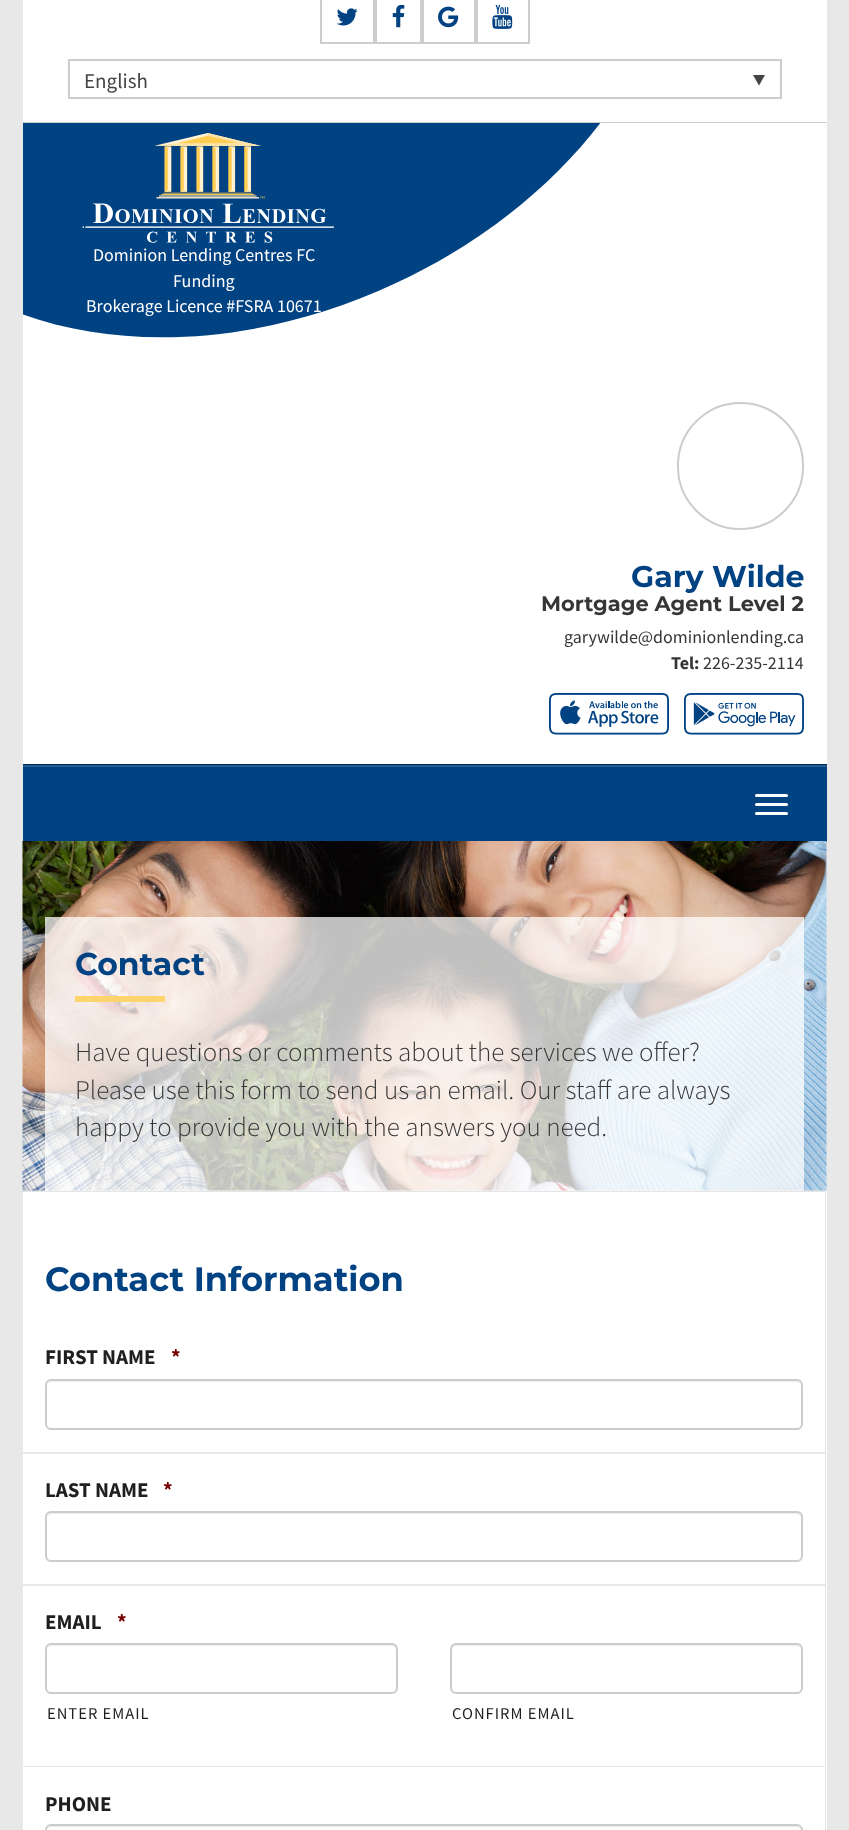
<svg xmlns="http://www.w3.org/2000/svg" width="849" height="1830" viewBox="0 0 849 1830">
  <defs>
    <clipPath id="clip1"><rect x="23" y="123" width="804" height="215"/></clipPath>
  </defs>
  <rect width="100%" height="100%" fill="#e8e8e8"/>
  <rect x="23" y="0" width="804" height="122" fill="#ffffff"/>
  <rect x="23" y="122" width="804" height="1" fill="#cdcdcd"/>
  <rect x="321" y="-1" width="53" height="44" fill="none" stroke="#cdcdcd" stroke-width="2"/>
  <image x="336" y="8" width="22" height="18" href="img1.png"/>
  <rect x="376" y="-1" width="45" height="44" fill="none" stroke="#cdcdcd" stroke-width="2"/>
  <image x="392" y="4" width="13" height="24" href="img2.png"/>
  <rect x="423" y="-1" width="52" height="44" fill="none" stroke="#cdcdcd" stroke-width="2"/>
  <image x="438" y="6" width="21" height="22" href="img3.png"/>
  <rect x="477" y="-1" width="52" height="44" fill="none" stroke="#cdcdcd" stroke-width="2"/>
  <image x="492" y="4" width="21" height="25" href="img4.png"/>
  <rect x="69" y="60" width="712" height="38" fill="none" stroke="#cdcdcd" stroke-width="2"/>
  <text x="84" y="88" font-family="Source Sans Pro" font-size="21" fill="#444444">English</text>
  <path d="M753 75H765L759 85.5Z" fill="#444444"/>
  <rect x="23" y="123" width="804" height="641" fill="#ffffff"/>
  <g clip-path="url(#clip1)">
    <path d="M129-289C347-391 583-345 657-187C730-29 614 182 396 283C178 385-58 339-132 181C-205 23-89-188 129-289Z" fill="#004282"/>
  </g>
  <image x="82" y="133" width="252" height="110" href="img5.png"/>
  <text x="93" y="261" font-family="Source Sans Pro" font-size="18" fill="#ffffff">Dominion Lending Centres FC</text>
  <text x="173" y="287" font-family="Source Sans Pro" font-size="18" fill="#ffffff">Funding</text>
  <text x="86" y="312" font-family="Source Sans Pro" font-size="18" fill="#ffffff">Brokerage Licence #FSRA 10671</text>
  <rect x="678" y="403" width="125" height="126" rx="62.5" fill="none" stroke="#cdcdcd" stroke-width="2"/>
  <text x="631" y="587" font-family="Montserrat" font-size="30" font-weight="bold" fill="#004282">Gary Wilde</text>
  <text x="541" y="611" font-family="Montserrat" font-size="21" font-weight="bold" fill="#363636">Mortgage Agent Level 2</text>
  <text x="564" y="643" font-family="Source Sans Pro" font-size="18" fill="#363636">garywilde@dominionlending.ca</text>
  <text x="671" y="669" font-family="Source Sans Pro" font-size="18" font-weight="bold" fill="#363636">Tel:</text>
  <text x="703" y="669" font-family="Source Sans Pro" font-size="18" fill="#363636">226-235-2114</text>
  <image x="549" y="693" width="120" height="42" href="img6.png"/>
  <image x="684" y="693" width="120" height="42" href="img7.png"/>
  <path d="M23 764V765H826V840H827V764Z" fill="#00274e"/>
  <rect x="23" y="767" width="804" height="75" fill="#004282"/>
  <rect x="23" y="765" width="804" height="2" fill="#225d96"/>
  <rect x="755" y="794" width="33" height="3" rx="1.5" fill="#ffffff"/>
  <rect x="755" y="803" width="33" height="3" rx="1.5" fill="#ffffff"/>
  <rect x="755" y="812" width="33" height="3" rx="1.5" fill="#ffffff"/>
  <image x="22" y="841" width="805" height="350" href="img8.png"/>
  <rect x="45" y="917" width="759" height="274" fill="#ffffff" fill-opacity="0.75"/>
  <text x="75" y="975" font-family="Montserrat" font-size="31.5" font-weight="bold" fill="#004282">Contact</text>
  <rect x="75" y="996" width="90" height="6" fill="#fed46c"/>
  <text x="75" y="1061" font-family="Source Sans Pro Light" font-size="27" font-weight="300" fill="#363636">Have questions or comments about the services we offer?</text>
  <text x="75" y="1099" font-family="Source Sans Pro Light" font-size="27" font-weight="300" fill="#363636">Please use this form to send us an email. Our staff are always</text>
  <text x="75" y="1136" font-family="Source Sans Pro Light" font-size="27" font-weight="300" fill="#363636">happy to provide you with the answers you need.</text>
  <rect x="23" y="1191" width="804" height="639" fill="#ffffff"/>
  <path d="M22 1191H826L825 1192H22Z" fill="#000000" fill-opacity="0.1"/>
  <path d="M826 1191V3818H825V1192Z" fill="#000000" fill-opacity="0.1"/>
  <text x="45" y="1291" font-family="Montserrat" font-size="33.75" font-weight="bold" fill="#004282">Contact Information</text>
  <rect x="23" y="1452" width="802" height="2" fill="#e8e8e8"/>
  <text x="45" y="1364" font-family="Source Sans Pro" font-size="21" font-weight="bold" fill="#1f1f1f">FIRST NAME</text>
  <text x="171" y="1364" font-family="Source Sans Pro" font-size="21" font-weight="bold" fill="#790000">*</text>
  <path d="M51 1382H796C799 1382 801 1384 801 1386V1385C801 1382 799 1380 796 1380H52C50 1380 48 1382 47 1384C48 1383 50 1382 51 1382Z" fill="#ececec"/>
  <rect x="46" y="1380" width="756" height="49" rx="5" fill="none" stroke="#cccccc" stroke-width="2"/>
  <rect x="23" y="1584" width="802" height="2" fill="#e8e8e8"/>
  <text x="45" y="1497" font-family="Source Sans Pro" font-size="21" font-weight="bold" fill="#1f1f1f">LAST NAME</text>
  <text x="163" y="1497" font-family="Source Sans Pro" font-size="21" font-weight="bold" fill="#790000">*</text>
  <path d="M51 1514H796C799 1514 801 1516 801 1518V1517C801 1514 799 1512 796 1512H52C50 1512 48 1514 47 1516C48 1515 50 1514 51 1514Z" fill="#ececec"/>
  <rect x="46" y="1512" width="756" height="49" rx="5" fill="none" stroke="#cccccc" stroke-width="2"/>
  <rect x="23" y="1766" width="802" height="1" fill="#e8e8e8"/>
  <text x="45" y="1629" font-family="Source Sans Pro" font-size="21" font-weight="bold" fill="#1f1f1f">EMAIL</text>
  <text x="117" y="1629" font-family="Source Sans Pro" font-size="21" font-weight="bold" fill="#790000">*</text>
  <path d="M51 1646H392C394 1646 396 1648 396 1650V1649C396 1646 394 1644 391 1644H52C50 1644 48 1646 47 1648C48 1647 50 1646 51 1646Z" fill="#ececec"/>
  <rect x="46" y="1644" width="351" height="49" rx="5" fill="none" stroke="#cccccc" stroke-width="2"/>
  <text x="47" y="1719" font-family="Source Sans Pro" font-size="16.5" letter-spacing="1" fill="#1f1f1f">ENTER EMAIL</text>
  <path d="M456 1646H796C799 1646 801 1648 801 1650V1649C801 1646 799 1644 796 1644H457C454 1644 452 1646 452 1649V1650C452 1648 454 1646 456 1646Z" fill="#ececec"/>
  <rect x="451" y="1644" width="351" height="49" rx="5" fill="none" stroke="#cccccc" stroke-width="2"/>
  <text x="452" y="1719" font-family="Source Sans Pro" font-size="16.5" letter-spacing="1" fill="#1f1f1f">CONFIRM EMAIL</text>
  <text x="45" y="1811" font-family="Source Sans Pro" font-size="21" font-weight="bold" fill="#1f1f1f">PHONE</text>
  <path d="M51 1827H796C799 1827 801 1829 801 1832V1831C801 1828 799 1826 796 1826H52C50 1826 49 1827 48 1828Z" fill="#ececec"/>
  <rect x="46" y="1825" width="756" height="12" rx="5" fill="none" stroke="#cccccc" stroke-width="2"/>
</svg>
